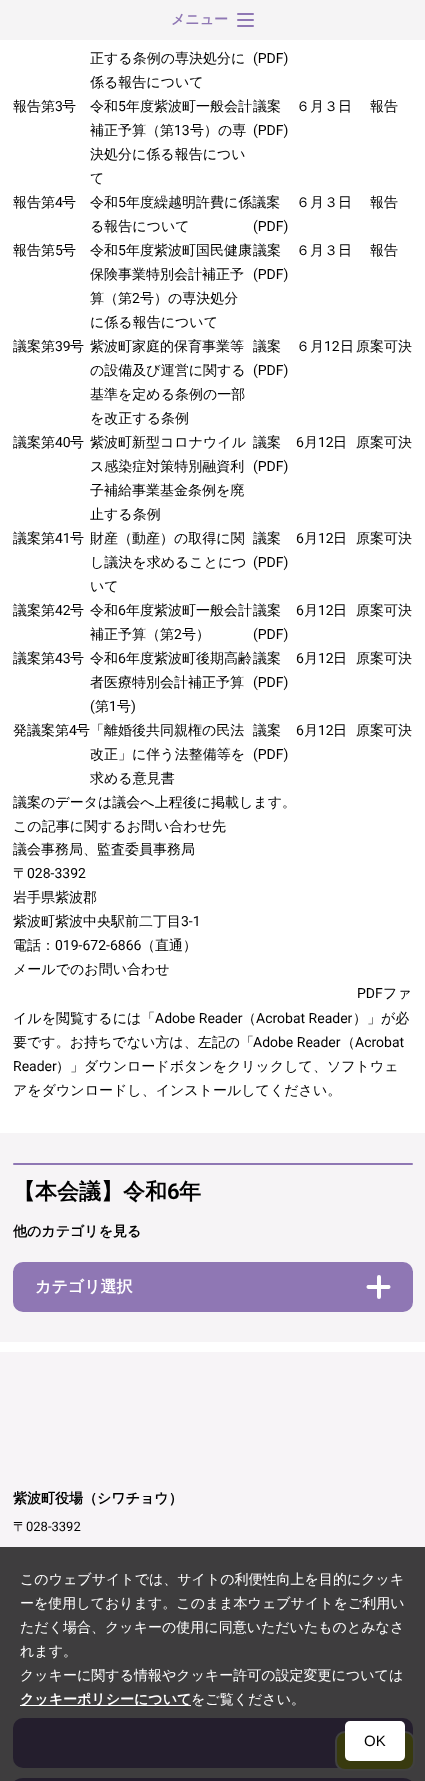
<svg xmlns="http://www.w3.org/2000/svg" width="425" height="1781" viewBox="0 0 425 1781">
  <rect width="100%" height="100%" fill="#ffffff"/>
  <rect x="0" y="0" width="425" height="40" fill="#f5f4f5"/>
  <text x="171" y="24" font-family="WenQuanYi Zen Hei" font-size="14" font-weight="bold" fill="#8f77b4">メニュー</text>
  <rect x="237" y="13" width="17" height="2" rx="1" fill="#8f77b4"/>
  <rect x="237" y="19" width="17" height="2" rx="1" fill="#8f77b4"/>
  <rect x="237" y="25" width="17" height="2" rx="1" fill="#8f77b4"/>
  <text x="90" y="63" font-family="WenQuanYi Zen Hei" font-size="14" font-weight="500" fill="#000000">正する条例の専決処分に</text>
  <text x="90" y="87" font-family="WenQuanYi Zen Hei" font-size="14" font-weight="500" fill="#000000">係る報告について</text>
  <text x="253" y="63" font-family="Roboto" font-size="14" fill="#000000">(PDF)</text>
  <text x="13" y="111" font-family="WenQuanYi Zen Hei" font-size="14" font-weight="500" fill="#000000">報告第</text>
  <text x="55" y="111" font-family="Roboto" font-size="14" fill="#000000">3</text>
  <text x="62" y="111" font-family="WenQuanYi Zen Hei" font-size="14" font-weight="500" fill="#000000">号</text>
  <text x="90" y="111" font-family="WenQuanYi Zen Hei" font-size="14" font-weight="500" fill="#000000">令和</text>
  <text x="118" y="111" font-family="Roboto" font-size="14" fill="#000000">5</text>
  <text x="126" y="111" font-family="WenQuanYi Zen Hei" font-size="14" font-weight="500" fill="#000000">年度紫波町一般会計</text>
  <text x="90" y="135" font-family="WenQuanYi Zen Hei" font-size="14" font-weight="500" fill="#000000">補正予算（第</text>
  <text x="174" y="135" font-family="Roboto" font-size="14" fill="#000000">13</text>
  <text x="190" y="135" font-family="WenQuanYi Zen Hei" font-size="14" font-weight="500" fill="#000000">号）の専</text>
  <text x="90" y="159" font-family="WenQuanYi Zen Hei" font-size="14" font-weight="500" fill="#000000">決処分に係る報告につい</text>
  <text x="90" y="183" font-family="WenQuanYi Zen Hei" font-size="14" font-weight="500" fill="#000000">て</text>
  <text x="253" y="111" font-family="WenQuanYi Zen Hei" font-size="14" font-weight="500" fill="#000000">議案</text>
  <text x="253" y="135" font-family="Roboto" font-size="14" fill="#000000">(PDF)</text>
  <text x="296" y="111" font-family="WenQuanYi Zen Hei" font-size="14" font-weight="500" fill="#000000">６月３日</text>
  <text x="370" y="111" font-family="WenQuanYi Zen Hei" font-size="14" font-weight="500" fill="#000000">報告</text>
  <text x="13" y="207" font-family="WenQuanYi Zen Hei" font-size="14" font-weight="500" fill="#000000">報告第</text>
  <text x="55" y="207" font-family="Roboto" font-size="14" fill="#000000">4</text>
  <text x="62" y="207" font-family="WenQuanYi Zen Hei" font-size="14" font-weight="500" fill="#000000">号</text>
  <text x="90" y="207" font-family="WenQuanYi Zen Hei" font-size="14" font-weight="500" fill="#000000">令和</text>
  <text x="118" y="207" font-family="Roboto" font-size="14" fill="#000000">5</text>
  <text x="126" y="207" font-family="WenQuanYi Zen Hei" font-size="14" font-weight="500" fill="#000000">年度繰越明許費に係議案</text>
  <text x="90" y="231" font-family="WenQuanYi Zen Hei" font-size="14" font-weight="500" fill="#000000">る報告について</text>
  <text x="296" y="207" font-family="WenQuanYi Zen Hei" font-size="14" font-weight="500" fill="#000000">６月３日</text>
  <text x="370" y="207" font-family="WenQuanYi Zen Hei" font-size="14" font-weight="500" fill="#000000">報告</text>
  <text x="253" y="231" font-family="Roboto" font-size="14" fill="#000000">(PDF)</text>
  <text x="13" y="255" font-family="WenQuanYi Zen Hei" font-size="14" font-weight="500" fill="#000000">報告第</text>
  <text x="55" y="255" font-family="Roboto" font-size="14" fill="#000000">5</text>
  <text x="62" y="255" font-family="WenQuanYi Zen Hei" font-size="14" font-weight="500" fill="#000000">号</text>
  <text x="90" y="255" font-family="WenQuanYi Zen Hei" font-size="14" font-weight="500" fill="#000000">令和</text>
  <text x="118" y="255" font-family="Roboto" font-size="14" fill="#000000">5</text>
  <text x="126" y="255" font-family="WenQuanYi Zen Hei" font-size="14" font-weight="500" fill="#000000">年度紫波町国民健康</text>
  <text x="90" y="279" font-family="WenQuanYi Zen Hei" font-size="14" font-weight="500" fill="#000000">保険事業特別会計補正予</text>
  <text x="90" y="303" font-family="WenQuanYi Zen Hei" font-size="14" font-weight="500" fill="#000000">算（第</text>
  <text x="132" y="303" font-family="Roboto" font-size="14" fill="#000000">2</text>
  <text x="140" y="303" font-family="WenQuanYi Zen Hei" font-size="14" font-weight="500" fill="#000000">号）の専決処分</text>
  <text x="90" y="327" font-family="WenQuanYi Zen Hei" font-size="14" font-weight="500" fill="#000000">に係る報告について</text>
  <text x="253" y="255" font-family="WenQuanYi Zen Hei" font-size="14" font-weight="500" fill="#000000">議案</text>
  <text x="253" y="279" font-family="Roboto" font-size="14" fill="#000000">(PDF)</text>
  <text x="296" y="255" font-family="WenQuanYi Zen Hei" font-size="14" font-weight="500" fill="#000000">６月３日</text>
  <text x="370" y="255" font-family="WenQuanYi Zen Hei" font-size="14" font-weight="500" fill="#000000">報告</text>
  <text x="13" y="351" font-family="WenQuanYi Zen Hei" font-size="14" font-weight="500" fill="#000000">議案第</text>
  <text x="55" y="351" font-family="Roboto" font-size="14" fill="#000000">39</text>
  <text x="70" y="351" font-family="WenQuanYi Zen Hei" font-size="14" font-weight="500" fill="#000000">号</text>
  <text x="90" y="351" font-family="WenQuanYi Zen Hei" font-size="14" font-weight="500" fill="#000000">紫波町家庭的保育事業等</text>
  <text x="90" y="375" font-family="WenQuanYi Zen Hei" font-size="14" font-weight="500" fill="#000000">の設備及び運営に関する</text>
  <text x="90" y="399" font-family="WenQuanYi Zen Hei" font-size="14" font-weight="500" fill="#000000">基準を定める条例の一部</text>
  <text x="90" y="423" font-family="WenQuanYi Zen Hei" font-size="14" font-weight="500" fill="#000000">を改正する条例</text>
  <text x="253" y="351" font-family="WenQuanYi Zen Hei" font-size="14" font-weight="500" fill="#000000">議案</text>
  <text x="253" y="375" font-family="Roboto" font-size="14" fill="#000000">(PDF)</text>
  <text x="296" y="351" font-family="WenQuanYi Zen Hei" font-size="14" font-weight="500" fill="#000000">６月</text>
  <text x="324" y="351" font-family="Roboto" font-size="14" fill="#000000">12</text>
  <text x="340" y="351" font-family="WenQuanYi Zen Hei" font-size="14" font-weight="500" fill="#000000">日</text>
  <text x="356" y="351" font-family="WenQuanYi Zen Hei" font-size="14" font-weight="500" fill="#000000">原案可決</text>
  <text x="13" y="447" font-family="WenQuanYi Zen Hei" font-size="14" font-weight="500" fill="#000000">議案第</text>
  <text x="55" y="447" font-family="Roboto" font-size="14" fill="#000000">40</text>
  <text x="70" y="447" font-family="WenQuanYi Zen Hei" font-size="14" font-weight="500" fill="#000000">号</text>
  <text x="90" y="447" font-family="WenQuanYi Zen Hei" font-size="14" font-weight="500" fill="#000000">紫波町新型コロナウイル</text>
  <text x="90" y="471" font-family="WenQuanYi Zen Hei" font-size="14" font-weight="500" fill="#000000">ス感染症対策特別融資利</text>
  <text x="90" y="495" font-family="WenQuanYi Zen Hei" font-size="14" font-weight="500" fill="#000000">子補給事業基金条例を廃</text>
  <text x="90" y="519" font-family="WenQuanYi Zen Hei" font-size="14" font-weight="500" fill="#000000">止する条例</text>
  <text x="253" y="447" font-family="WenQuanYi Zen Hei" font-size="14" font-weight="500" fill="#000000">議案</text>
  <text x="253" y="471" font-family="Roboto" font-size="14" fill="#000000">(PDF)</text>
  <text x="296" y="447" font-family="Roboto" font-size="14" fill="#000000">6</text>
  <text x="304" y="447" font-family="WenQuanYi Zen Hei" font-size="14" font-weight="500" fill="#000000">月</text>
  <text x="318" y="447" font-family="Roboto" font-size="14" fill="#000000">12</text>
  <text x="333" y="447" font-family="WenQuanYi Zen Hei" font-size="14" font-weight="500" fill="#000000">日</text>
  <text x="356" y="447" font-family="WenQuanYi Zen Hei" font-size="14" font-weight="500" fill="#000000">原案可決</text>
  <text x="13" y="543" font-family="WenQuanYi Zen Hei" font-size="14" font-weight="500" fill="#000000">議案第</text>
  <text x="55" y="543" font-family="Roboto" font-size="14" fill="#000000">41</text>
  <text x="70" y="543" font-family="WenQuanYi Zen Hei" font-size="14" font-weight="500" fill="#000000">号</text>
  <text x="90" y="543" font-family="WenQuanYi Zen Hei" font-size="14" font-weight="500" fill="#000000">財産（動産）の取得に関</text>
  <text x="90" y="567" font-family="WenQuanYi Zen Hei" font-size="14" font-weight="500" fill="#000000">し議決を求めることにつ</text>
  <text x="90" y="591" font-family="WenQuanYi Zen Hei" font-size="14" font-weight="500" fill="#000000">いて</text>
  <text x="253" y="543" font-family="WenQuanYi Zen Hei" font-size="14" font-weight="500" fill="#000000">議案</text>
  <text x="253" y="567" font-family="Roboto" font-size="14" fill="#000000">(PDF)</text>
  <text x="296" y="543" font-family="Roboto" font-size="14" fill="#000000">6</text>
  <text x="304" y="543" font-family="WenQuanYi Zen Hei" font-size="14" font-weight="500" fill="#000000">月</text>
  <text x="318" y="543" font-family="Roboto" font-size="14" fill="#000000">12</text>
  <text x="333" y="543" font-family="WenQuanYi Zen Hei" font-size="14" font-weight="500" fill="#000000">日</text>
  <text x="356" y="543" font-family="WenQuanYi Zen Hei" font-size="14" font-weight="500" fill="#000000">原案可決</text>
  <text x="13" y="615" font-family="WenQuanYi Zen Hei" font-size="14" font-weight="500" fill="#000000">議案第</text>
  <text x="55" y="615" font-family="Roboto" font-size="14" fill="#000000">42</text>
  <text x="70" y="615" font-family="WenQuanYi Zen Hei" font-size="14" font-weight="500" fill="#000000">号</text>
  <text x="90" y="615" font-family="WenQuanYi Zen Hei" font-size="14" font-weight="500" fill="#000000">令和</text>
  <text x="118" y="615" font-family="Roboto" font-size="14" fill="#000000">6</text>
  <text x="126" y="615" font-family="WenQuanYi Zen Hei" font-size="14" font-weight="500" fill="#000000">年度紫波町一般会計</text>
  <text x="90" y="639" font-family="WenQuanYi Zen Hei" font-size="14" font-weight="500" fill="#000000">補正予算（第</text>
  <text x="174" y="639" font-family="Roboto" font-size="14" fill="#000000">2</text>
  <text x="182" y="639" font-family="WenQuanYi Zen Hei" font-size="14" font-weight="500" fill="#000000">号）</text>
  <text x="253" y="615" font-family="WenQuanYi Zen Hei" font-size="14" font-weight="500" fill="#000000">議案</text>
  <text x="253" y="639" font-family="Roboto" font-size="14" fill="#000000">(PDF)</text>
  <text x="296" y="615" font-family="Roboto" font-size="14" fill="#000000">6</text>
  <text x="304" y="615" font-family="WenQuanYi Zen Hei" font-size="14" font-weight="500" fill="#000000">月</text>
  <text x="318" y="615" font-family="Roboto" font-size="14" fill="#000000">12</text>
  <text x="333" y="615" font-family="WenQuanYi Zen Hei" font-size="14" font-weight="500" fill="#000000">日</text>
  <text x="356" y="615" font-family="WenQuanYi Zen Hei" font-size="14" font-weight="500" fill="#000000">原案可決</text>
  <text x="13" y="663" font-family="WenQuanYi Zen Hei" font-size="14" font-weight="500" fill="#000000">議案第</text>
  <text x="55" y="663" font-family="Roboto" font-size="14" fill="#000000">43</text>
  <text x="70" y="663" font-family="WenQuanYi Zen Hei" font-size="14" font-weight="500" fill="#000000">号</text>
  <text x="90" y="663" font-family="WenQuanYi Zen Hei" font-size="14" font-weight="500" fill="#000000">令和</text>
  <text x="118" y="663" font-family="Roboto" font-size="14" fill="#000000">6</text>
  <text x="126" y="663" font-family="WenQuanYi Zen Hei" font-size="14" font-weight="500" fill="#000000">年度紫波町後期高齢</text>
  <text x="90" y="687" font-family="WenQuanYi Zen Hei" font-size="14" font-weight="500" fill="#000000">者医療特別会計補正予算</text>
  <text x="90" y="711" font-family="Roboto" font-size="14" fill="#000000">(</text>
  <text x="95" y="711" font-family="WenQuanYi Zen Hei" font-size="14" font-weight="500" fill="#000000">第</text>
  <text x="109" y="711" font-family="Roboto" font-size="14" fill="#000000">1</text>
  <text x="117" y="711" font-family="WenQuanYi Zen Hei" font-size="14" font-weight="500" fill="#000000">号</text>
  <text x="131" y="711" font-family="Roboto" font-size="14" fill="#000000">)</text>
  <text x="253" y="663" font-family="WenQuanYi Zen Hei" font-size="14" font-weight="500" fill="#000000">議案</text>
  <text x="253" y="687" font-family="Roboto" font-size="14" fill="#000000">(PDF)</text>
  <text x="296" y="663" font-family="Roboto" font-size="14" fill="#000000">6</text>
  <text x="304" y="663" font-family="WenQuanYi Zen Hei" font-size="14" font-weight="500" fill="#000000">月</text>
  <text x="318" y="663" font-family="Roboto" font-size="14" fill="#000000">12</text>
  <text x="333" y="663" font-family="WenQuanYi Zen Hei" font-size="14" font-weight="500" fill="#000000">日</text>
  <text x="356" y="663" font-family="WenQuanYi Zen Hei" font-size="14" font-weight="500" fill="#000000">原案可決</text>
  <text x="13" y="735" font-family="WenQuanYi Zen Hei" font-size="14" font-weight="500" fill="#000000">発議案第</text>
  <text x="69" y="735" font-family="Roboto" font-size="14" fill="#000000">4</text>
  <text x="76" y="735" font-family="WenQuanYi Zen Hei" font-size="14" font-weight="500" fill="#000000">号「離婚後共同親権の民法</text>
  <text x="253" y="735" font-family="WenQuanYi Zen Hei" font-size="14" font-weight="500" fill="#000000">議案</text>
  <text x="253" y="759" font-family="Roboto" font-size="14" fill="#000000">(PDF)</text>
  <text x="296" y="735" font-family="Roboto" font-size="14" fill="#000000">6</text>
  <text x="304" y="735" font-family="WenQuanYi Zen Hei" font-size="14" font-weight="500" fill="#000000">月</text>
  <text x="318" y="735" font-family="Roboto" font-size="14" fill="#000000">12</text>
  <text x="333" y="735" font-family="WenQuanYi Zen Hei" font-size="14" font-weight="500" fill="#000000">日</text>
  <text x="356" y="735" font-family="WenQuanYi Zen Hei" font-size="14" font-weight="500" fill="#000000">原案可決</text>
  <text x="90" y="759" font-family="WenQuanYi Zen Hei" font-size="14" font-weight="500" fill="#000000">改正」に伴う法整備等を</text>
  <text x="90" y="783" font-family="WenQuanYi Zen Hei" font-size="14" font-weight="500" fill="#000000">求める意見書</text>
  <text x="13" y="807" font-family="WenQuanYi Zen Hei" font-size="14" font-weight="500" fill="#000000">議案のデータは議会へ上程後に掲載します。</text>
  <text x="13" y="831" font-family="WenQuanYi Zen Hei" font-size="14" font-weight="500" fill="#000000">この記事に関するお問い合わせ先</text>
  <text x="13" y="854" font-family="WenQuanYi Zen Hei" font-size="14" font-weight="500" fill="#000000">議会事務局、監査委員事務局</text>
  <text x="13" y="878" font-family="WenQuanYi Zen Hei" font-size="14" font-weight="500" fill="#000000">〒</text>
  <text x="27" y="878" font-family="Roboto" font-size="14" fill="#000000">028-3392</text>
  <text x="13" y="902" font-family="WenQuanYi Zen Hei" font-size="14" font-weight="500" fill="#000000">岩手県紫波郡</text>
  <text x="13" y="926" font-family="WenQuanYi Zen Hei" font-size="14" font-weight="500" fill="#000000">紫波町紫波中央駅前二丁目</text>
  <text x="181" y="926" font-family="Roboto" font-size="14" fill="#000000">3-1</text>
  <text x="13" y="950" font-family="WenQuanYi Zen Hei" font-size="14" font-weight="500" fill="#000000">電話：</text>
  <text x="55" y="950" font-family="Roboto" font-size="14" fill="#000000">019-672-6866</text>
  <text x="141" y="950" font-family="WenQuanYi Zen Hei" font-size="14" font-weight="500" fill="#000000">（直通）</text>
  <text x="13" y="974" font-family="WenQuanYi Zen Hei" font-size="14" font-weight="500" fill="#000000">メールでのお問い合わせ</text>
  <text x="357" y="998" font-family="Roboto" font-size="14" fill="#000000">PDF</text>
  <text x="383" y="998" font-family="WenQuanYi Zen Hei" font-size="14" font-weight="500" fill="#000000">ファ</text>
  <text x="13" y="1023" font-family="WenQuanYi Zen Hei" font-size="14" font-weight="500" fill="#000000">イルを閲覧するには「</text>
  <text x="155" y="1023" font-family="Roboto" font-size="14" fill="#000000">Adobe Reader</text>
  <text x="242" y="1023" font-family="WenQuanYi Zen Hei" font-size="14" font-weight="500" fill="#000000">（</text>
  <text x="256" y="1023" font-family="Roboto" font-size="14" fill="#000000">Acrobat Reader</text>
  <text x="353" y="1023" font-family="WenQuanYi Zen Hei" font-size="14" font-weight="500" fill="#000000">）」が必</text>
  <text x="13" y="1047" font-family="WenQuanYi Zen Hei" font-size="14" font-weight="500" fill="#000000">要です。お持ちでない方は、左記の「</text>
  <text x="253" y="1047" font-family="Roboto" font-size="14" fill="#000000">Adobe Reader</text>
  <text x="341" y="1047" font-family="WenQuanYi Zen Hei" font-size="14" font-weight="500" fill="#000000">（</text>
  <text x="355" y="1047" font-family="Roboto" font-size="14" fill="#000000">Acrobat</text>
  <text x="13" y="1071" font-family="Roboto" font-size="14" fill="#000000">Reader</text>
  <text x="56" y="1071" font-family="WenQuanYi Zen Hei" font-size="14" font-weight="500" fill="#000000">）」ダウンロードボタンをクリックして、ソフトウェ</text>
  <text x="13" y="1095" font-family="WenQuanYi Zen Hei" font-size="14" font-weight="500" fill="#000000">アをダウンロードし、インストールしてください。</text>
  <rect x="0" y="1133" width="425" height="209" fill="#f6f4f6"/>
  <rect x="13" y="1163" width="400" height="2" rx="1" fill="#8f77b4"/>
  <text x="13" y="1199" font-family="WenQuanYi Zen Hei" font-size="22" font-weight="bold" fill="#000000">【本会議】令和</text>
  <text x="167" y="1199" font-family="Roboto" font-size="22" font-weight="bold" fill="#000000">6</text>
  <text x="179" y="1199" font-family="WenQuanYi Zen Hei" font-size="22" font-weight="bold" fill="#000000">年</text>
  <text x="13" y="1236" font-family="WenQuanYi Zen Hei" font-size="14" font-weight="bold" fill="#000000">他のカテゴリを見る</text>
  <rect x="14" y="1263" width="398" height="48" rx="9" fill="#8f77b4" stroke="#8f77b4" stroke-width="2"/>
  <text x="35" y="1292" font-family="WenQuanYi Zen Hei" font-size="16" font-weight="bold" fill="#ffffff">カテゴリ選択</text>
  <path d="M390.5 1287C390.5 1288 389.5 1289 388.5 1289H368.5C367.5 1289 366.5 1288 366.5 1287C366.5 1285.5 367.5 1285 368.5 1285H388.5C389.5 1285 390.5 1285.5 390.5 1287Z" fill="#ffffff"/>
  <rect x="377" y="1275" width="4" height="24" rx="2" fill="#ffffff"/>
  <rect x="0" y="1352" width="425" height="429" fill="#f7f4f7"/>
  <text x="13" y="1503" font-family="WenQuanYi Zen Hei" font-size="14" font-weight="bold" fill="#000000">紫波町役場（シワチョウ）</text>
  <text x="13" y="1531" font-family="WenQuanYi Zen Hei" font-size="13" font-weight="500" fill="#000000">〒</text>
  <text x="26" y="1531" font-family="Roboto" font-size="13" fill="#000000">028-3392</text>
  <rect x="13" y="1718" width="400" height="50" rx="10" fill="#8f77b4"/>
  <rect x="13" y="1778" width="400" height="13" rx="10" fill="#8f77b4"/>
  <rect x="336" y="1732" width="78" height="38" rx="9" fill="#dfe83b" stroke="#ffffff" stroke-width="2"/>
  <rect x="0" y="1547" width="425" height="234" fill="#000000" fill-opacity="0.75"/>
  <text x="20" y="1584" font-family="WenQuanYi Zen Hei" font-size="14" font-weight="500" fill="#ffffff">このウェブサイトでは、サイトの利便性向上を目的にクッキ</text>
  <text x="20" y="1608" font-family="WenQuanYi Zen Hei" font-size="14" font-weight="500" fill="#ffffff">ーを使用しております。このまま本ウェブサイトをご利用い</text>
  <text x="20" y="1632" font-family="WenQuanYi Zen Hei" font-size="14" font-weight="500" fill="#ffffff">ただく場合、クッキーの使用に同意いただいたものとみなさ</text>
  <text x="20" y="1656" font-family="WenQuanYi Zen Hei" font-size="14" font-weight="500" fill="#ffffff">れます。</text>
  <text x="20" y="1680" font-family="WenQuanYi Zen Hei" font-size="14" font-weight="500" fill="#ffffff">クッキーに関する情報やクッキー許可の設定変更については</text>
  <rect x="20" y="1705" width="171" height="1" fill="#ffffff"/>
  <text x="20" y="1704" font-family="WenQuanYi Zen Hei" font-size="14" font-weight="bold" fill="#ffffff">クッキーポリシーについて</text>
  <text x="191" y="1704" font-family="WenQuanYi Zen Hei" font-size="14" font-weight="500" fill="#ffffff">をご覧ください。</text>
  <rect x="345" y="1721" width="60" height="40" rx="5" fill="#ffffff"/>
  <text x="364" y="1746" font-family="Liberation Sans" font-size="15" fill="#000000">OK</text>
</svg>
